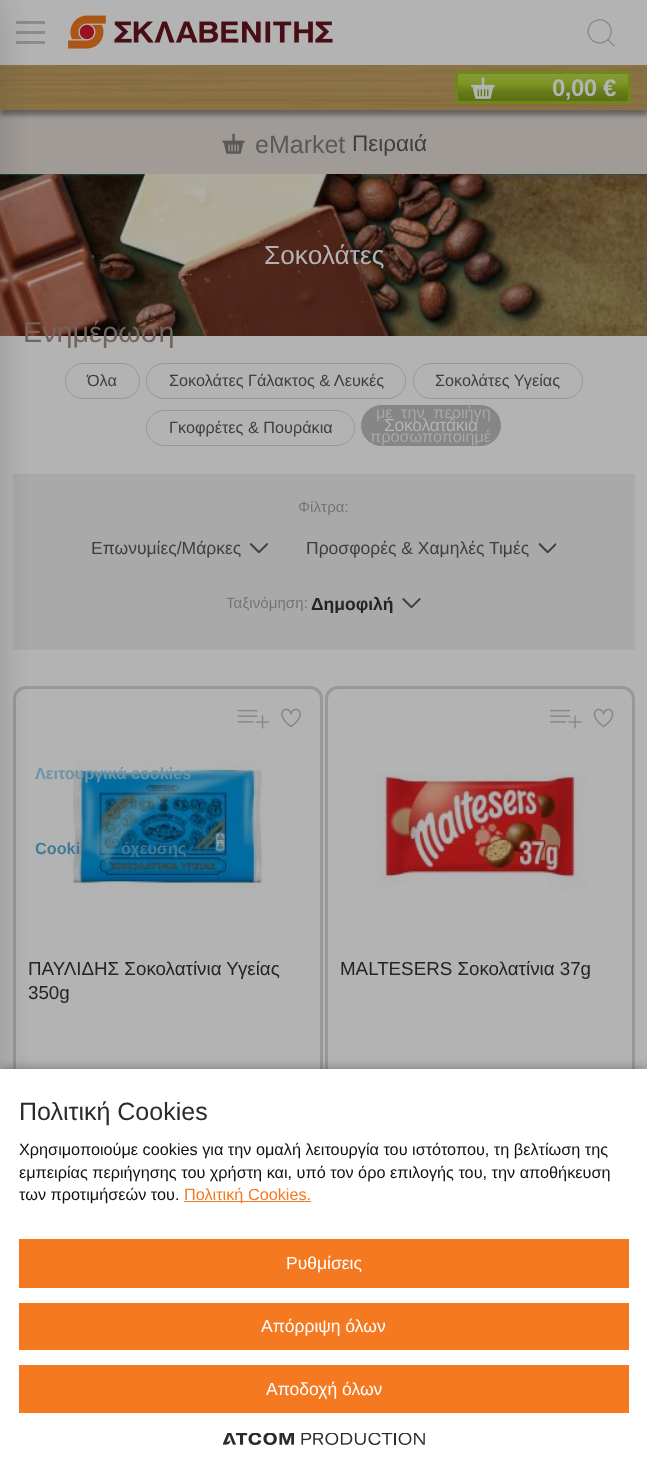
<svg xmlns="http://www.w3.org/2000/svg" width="647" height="1474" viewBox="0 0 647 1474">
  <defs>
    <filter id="blur1" x="-50%" y="-200%" width="200%" height="500%"><feGaussianBlur stdDeviation="2.5"/></filter>
    <filter id="blur2" x="-50%" y="-200%" width="200%" height="500%"><feGaussianBlur stdDeviation="18"/></filter>
    <clipPath id="clip1"><rect x="455" y="71" width="176" height="33" rx="5"/></clipPath>
    <linearGradient id="g1" gradientUnits="userSpaceOnUse" x1="543" y1="74" x2="543" y2="101"><stop offset="0" stop-color="#859a39"/><stop offset="0.34" stop-color="#7d9623"/><stop offset="0.68" stop-color="#667a19"/><stop offset="1" stop-color="#5b6e16"/></linearGradient>
    <clipPath id="clip2"><rect x="309" y="595" width="112" height="18" rx="5"/></clipPath>
    <filter id="blur3" x="-50%" y="-200%" width="200%" height="500%"><feGaussianBlur stdDeviation="6"/></filter>
  </defs>
  <rect width="100%" height="100%" fill="#b3b3b3"/>
  <rect x="16" y="21" width="29" height="3" fill="#8b8b8b"/>
  <rect x="16" y="31" width="29" height="3" fill="#8b8b8b"/>
  <rect x="16" y="41" width="29" height="3" fill="#8b8b8b"/>
  <rect x="0" y="110" width="647" height="64" fill="#a09b97"/>
  <rect x="0" y="70" width="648" height="45" fill="#000000" fill-opacity="0.38" filter="url(#blur1)"/>
  <rect x="0" y="109" width="647" height="1" fill="#8b7346"/>
  <image x="0" y="65" width="647" height="44" href="img3.png"/>
  <image x="0" y="174" width="647" height="162" href="img6.png"/>
  <rect x="13" y="474" width="622" height="176" fill="#a9a9a9"/>
  <rect x="14.5" y="687.5" width="307" height="510" rx="11.5" fill="none" stroke="#989898" stroke-width="3"/>
  <rect x="-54" y="0" width="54" height="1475" fill="#0d0b08" fill-opacity="0.16" filter="url(#blur2)"/>
  <image x="68" y="15" width="265" height="34" href="img1.png"/>
  <image x="587" y="19" width="28" height="28" href="img2.png"/>
  <g clip-path="url(#clip1)">
    <rect x="455" y="74" width="176" height="27" fill="url(#g1)"/>
  </g>
  <rect x="456.5" y="72.5" width="173" height="30" rx="3.5" fill="none" stroke="#70881b" stroke-width="3"/>
  <image x="471" y="77" width="24" height="22" href="img4.png"/>
  <text x="552" y="96" font-family="Liberation Sans" font-size="24" font-weight="bold" letter-spacing="-0.5" fill="#b3b3b3">0,00 €</text>
  <image x="222" y="133" width="23" height="21" href="img5.png"/>
  <text x="255" y="153" font-family="Liberation Sans" font-size="25" fill="#595959">eMarket</text>
  <text x="352" y="151" font-family="Liberation Sans" font-size="22.5" fill="#3e3e3e">Πειραιά</text>
  <text x="264" y="264" font-family="Liberation Sans" font-size="26.25" fill="#b3b3b3">Σοκολάτες</text>
  <rect x="65.5" y="363.5" width="74" height="35" rx="17.5" fill="none" stroke="#989898"/>
  <text x="87" y="386" font-family="Liberation Sans" font-size="16.25" fill="#3e3e3e">Όλα</text>
  <rect x="146.5" y="363.5" width="259" height="35" rx="17.5" fill="none" stroke="#989898"/>
  <text x="169" y="386" font-family="Liberation Sans" font-size="16.25" fill="#3e3e3e">Σοκολάτες Γάλακτος &amp; Λευκές</text>
  <rect x="413.5" y="363.5" width="169" height="35" rx="17.5" fill="none" stroke="#989898"/>
  <text x="435" y="386" font-family="Liberation Sans" font-size="16.25" fill="#3e3e3e">Σοκολάτες Υγείας</text>
  <rect x="146.5" y="410.5" width="208" height="35" rx="17.5" fill="none" stroke="#989898"/>
  <text x="169" y="433" font-family="Liberation Sans" font-size="16.25" fill="#3e3e3e">Γκοφρέτες &amp; Πουράκια</text>
  <rect x="361.5" y="405.5" width="139" height="40" rx="20" fill="#868686" stroke="#868686"/>
  <text x="384" y="431" font-family="Liberation Sans" font-size="17.5" letter-spacing="-0.25" fill="#b3b3b3">Σοκολατάκια</text>
  <text x="298" y="512" font-family="Liberation Sans" font-size="15" letter-spacing="0.1" fill="#747474">Φίλτρα:</text>
  <text x="91" y="554" font-family="Liberation Sans" font-size="17.5" fill="#3e3e3e">Επωνυμίες/Μάρκες</text>
  <image x="249" y="543" width="19" height="11" href="img7.png"/>
  <text x="306" y="554" font-family="Liberation Sans" font-size="17.5" fill="#3e3e3e">Προσφορές &amp; Χαμηλές Τιμές</text>
  <image x="538" y="543" width="18" height="11" href="img8.png"/>
  <text x="226" y="608" font-family="Liberation Sans" font-size="15" letter-spacing="0.1" fill="#747474">Ταξινόμηση:</text>
  <g clip-path="url(#clip2)">
    <text x="311" y="610" font-family="Liberation Sans" font-size="17.5" font-weight="bold" fill="#242424">Δημοφιλή</text>
  </g>
  <image x="402" y="598" width="19" height="11" href="img9.png"/>
  <image x="237" y="709" width="32" height="20" href="img10.png"/>
  <image x="281" y="708" width="20" height="20" href="img11.png"/>
  <image x="69" y="754" width="196" height="140" href="img12.png"/>
  <text x="28" y="975" font-family="Liberation Sans" font-size="18.75" fill="#242424">ΠΑΥΛΙΔΗΣ Σοκολατίνια Υγείας</text>
  <text x="28" y="999" font-family="Liberation Sans" font-size="18.75" fill="#242424">350g</text>
  <rect x="326.5" y="687.5" width="307" height="510" rx="11.5" fill="none" stroke="#989898" stroke-width="3"/>
  <image x="550" y="709" width="32" height="20" href="img13.png"/>
  <image x="593" y="708" width="21" height="20" href="img14.png"/>
  <image x="368" y="773" width="219" height="120" href="img15.png"/>
  <text x="340" y="975" font-family="Liberation Sans" font-size="18.75" fill="#242424">MALTESERS Σοκολατίνια 37g</text>
  <text x="23" y="342" font-family="Liberation Sans" font-size="28.75" fill="#73635d">Ενημέρωση</text>
  <text x="376" y="418" word-spacing="4" font-family="Liberation Sans" font-size="16.25" fill="#a8a8a8">με την περιήγη</text>
  <text x="370" y="442" word-spacing="2" font-family="Liberation Sans" font-size="16.25" fill="#a8a8a8">προσωποποιημέ</text>
  <text x="35" y="779" font-family="Liberation Sans" font-size="16.25" font-weight="bold" fill="#6a94a7">Λειτουργικά cookies</text>
  <text x="35" y="854" font-family="Liberation Sans" font-size="16.25" font-weight="bold" fill="#417a97">Cooki</text>
  <text x="121" y="854" font-family="Liberation Sans" font-size="16.25" font-weight="bold" fill="#417a97">όχευσης</text>
  <rect x="0" y="1069" width="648" height="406" fill="#000000" fill-opacity="0.37" filter="url(#blur3)"/>
  <rect x="0" y="1069" width="647" height="405" fill="#ffffff"/>
  <text x="19" y="1120" font-family="Liberation Sans" font-size="25" fill="#2a2a2a">Πολιτική Cookies</text>
  <text x="19" y="1155" font-family="Liberation Sans" font-size="16.25" fill="#0d1012">Χρησιμοποιούμε cookies για την ομαλή λειτουργία του ιστότοπου, τη βελτίωση της</text>
  <text x="19" y="1178" font-family="Liberation Sans" font-size="16.25" fill="#0d1012">εμπειρίας περιήγησης του χρήστη και, υπό τον όρο επιλογής του, την αποθήκευση</text>
  <text x="19" y="1200" font-family="Liberation Sans" font-size="16.25" fill="#0d1012">των προτιμήσεών του.</text>
  <rect x="184" y="1201" width="127" height="1" fill="#f47920"/>
  <text x="184" y="1200" font-family="Liberation Sans" font-size="16.25" fill="#f47920">Πολιτική Cookies.</text>
  <rect x="19" y="1239" width="610" height="49" fill="#f47920"/>
  <text x="286" y="1269" font-family="Liberation Sans" font-size="17.5" fill="#ffffff">Ρυθμίσεις</text>
  <rect x="19" y="1303" width="610" height="47" fill="#f47920"/>
  <text x="261" y="1332" font-family="Liberation Sans" font-size="17.5" fill="#ffffff">Απόρριψη όλων</text>
  <rect x="19" y="1365" width="610" height="48" fill="#f47920"/>
  <text x="266" y="1395" font-family="Liberation Sans" font-size="17.5" fill="#ffffff">Αποδοχή όλων</text>
  <image x="223" y="1433" width="202" height="12" href="img16.png"/>
</svg>
